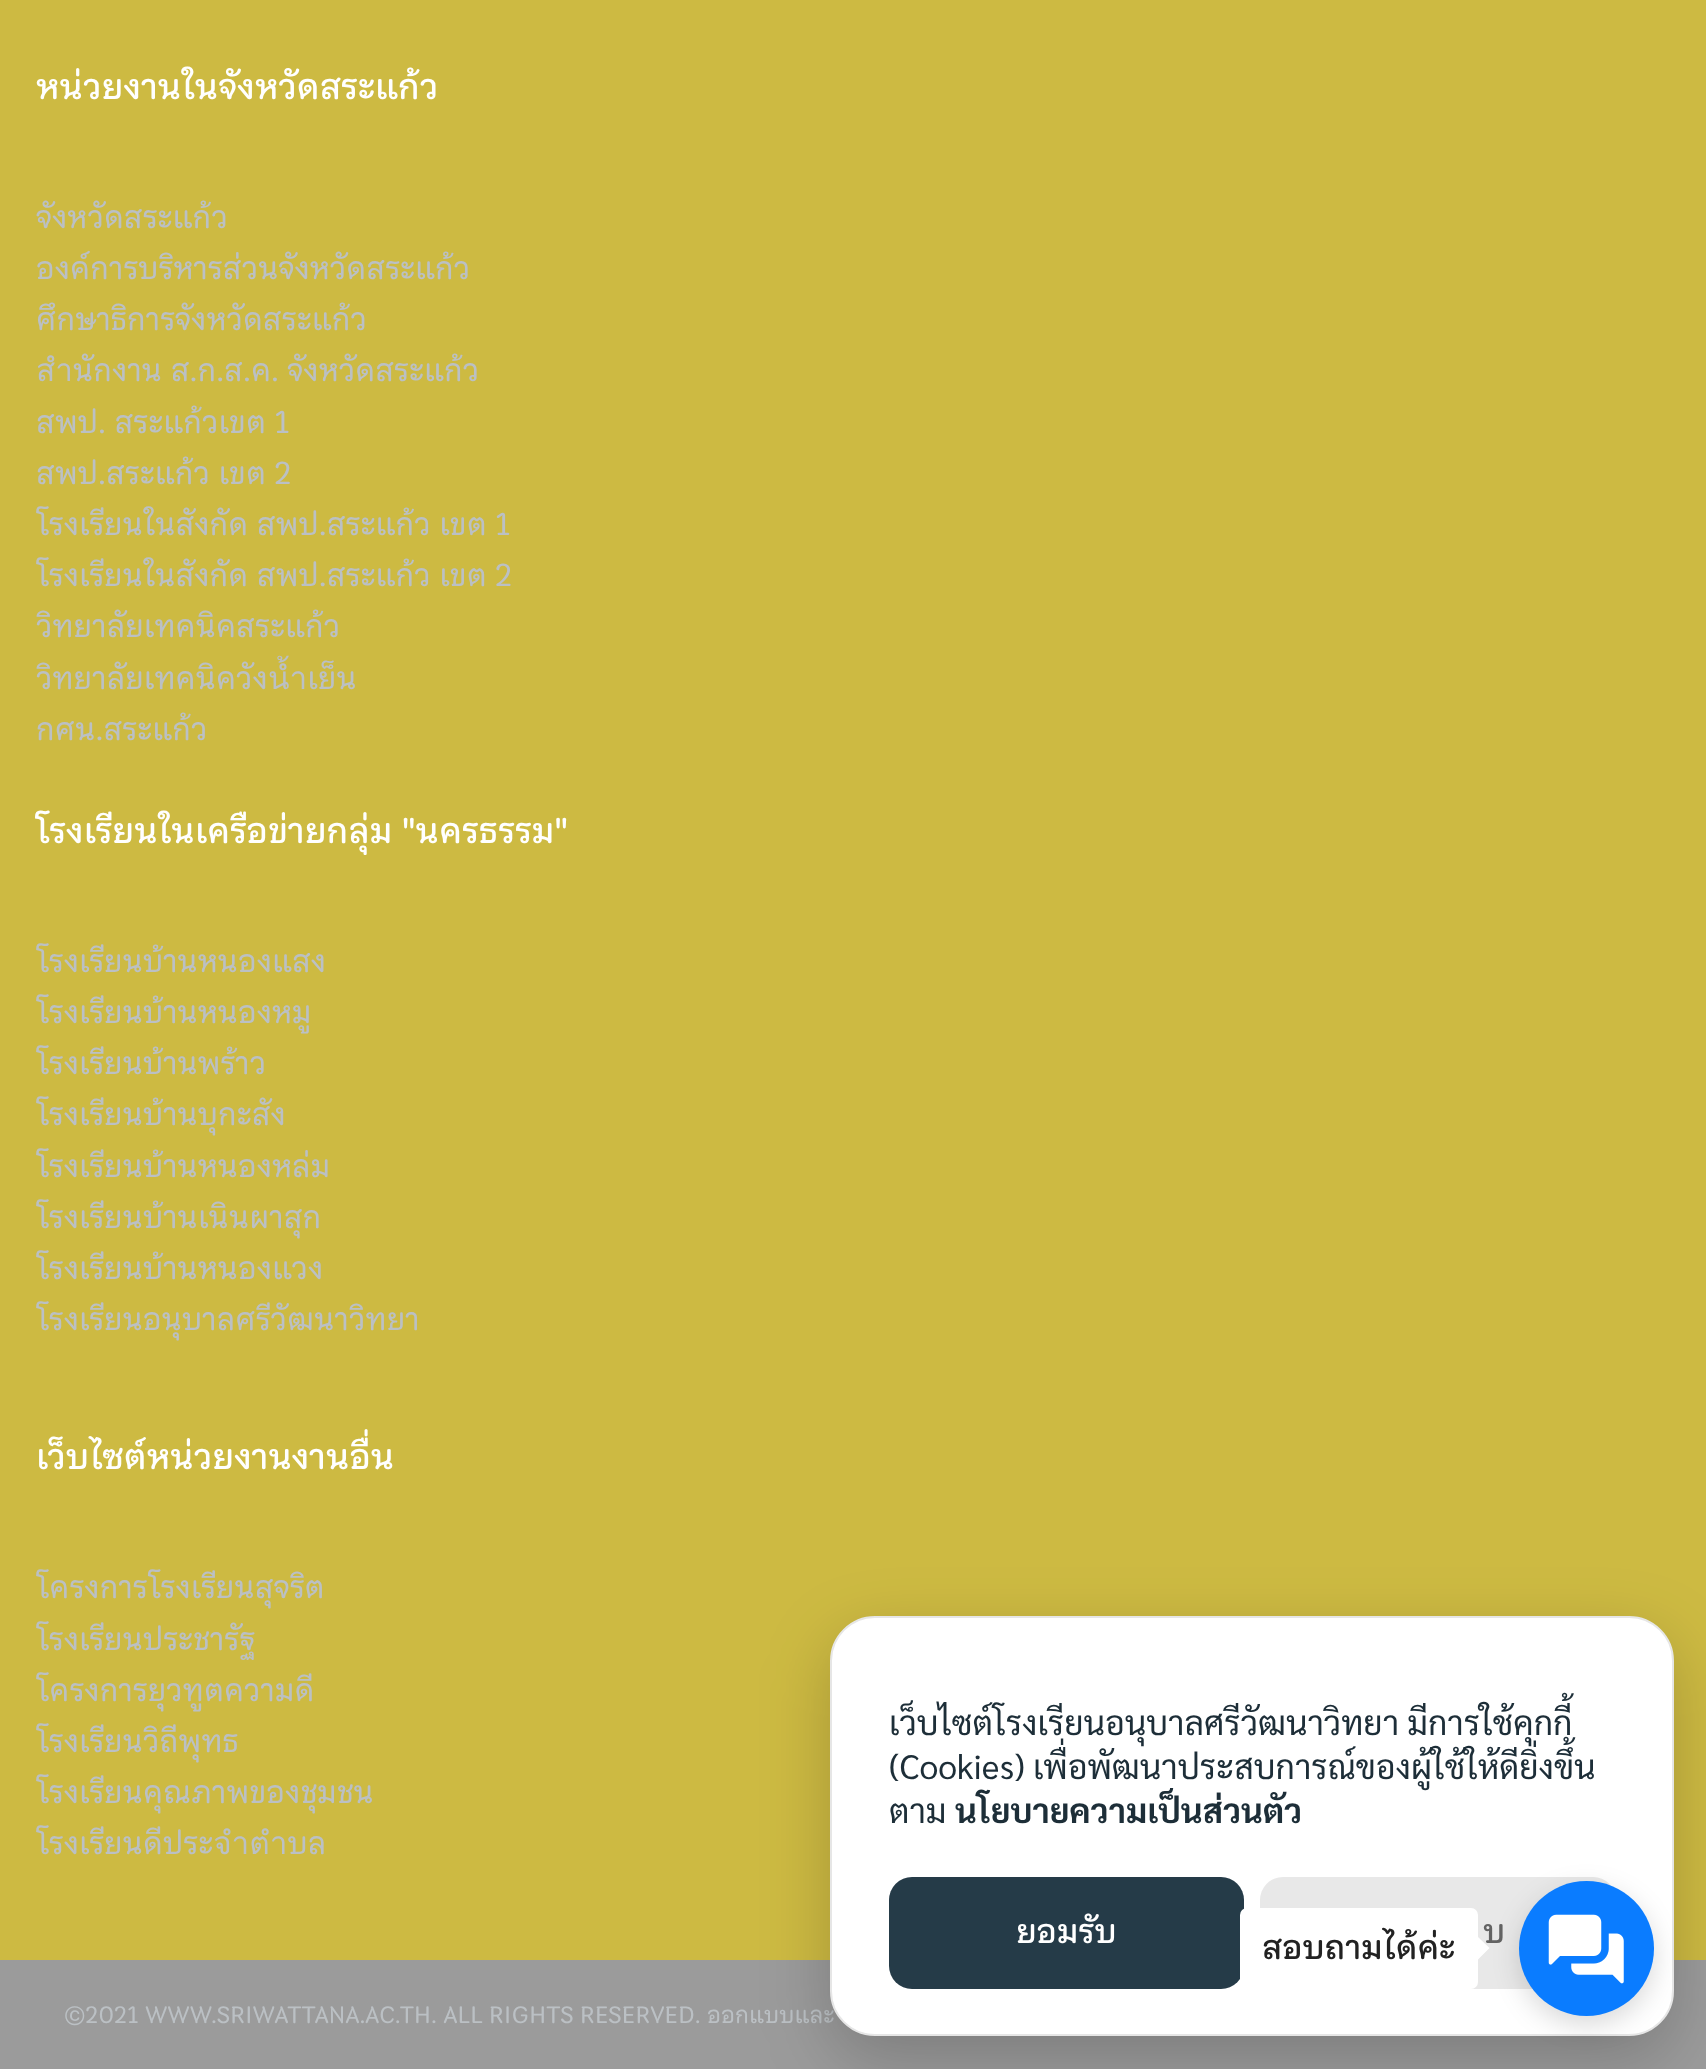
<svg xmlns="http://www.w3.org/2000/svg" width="1706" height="2069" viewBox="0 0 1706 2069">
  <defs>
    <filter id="blur1" x="-50%" y="-200%" width="200%" height="500%"><feGaussianBlur stdDeviation="34"/></filter>
    <filter id="blur2" x="-50%" y="-200%" width="200%" height="500%"><feGaussianBlur stdDeviation="13.5"/></filter>
  </defs>
  <rect width="100%" height="100%" fill="#cdba42"/>
  <text x="36" y="99" font-family="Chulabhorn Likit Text" font-size="35.5" font-weight="500" fill="#ffffff">หน่วยงานในจังหวัดสระแก้ว</text>
  <text x="36" y="228" font-family="Chulabhorn Likit Text" font-size="31.5" fill="#bbc0c4">จังหวัดสระแก้ว</text>
  <text x="36" y="279" font-family="Chulabhorn Likit Text" font-size="31.5" fill="#bbc0c4">องค์การบริหารส่วนจังหวัดสระแก้ว</text>
  <text x="36" y="330" font-family="Chulabhorn Likit Text" font-size="31.5" fill="#bbc0c4">ศึกษาธิการจังหวัดสระแก้ว</text>
  <text x="36" y="381" font-family="Chulabhorn Likit Text" font-size="31.5" fill="#bbc0c4">สำนักงาน ส.ก.ส.ค. จังหวัดสระแก้ว</text>
  <text x="36" y="433" font-family="Chulabhorn Likit Text" font-size="31.5" fill="#bbc0c4">สพป. สระแก้วเขต 1</text>
  <text x="36" y="484" font-family="Chulabhorn Likit Text" font-size="31.5" fill="#bbc0c4">สพป.สระแก้ว เขต 2</text>
  <text x="36" y="535" font-family="Chulabhorn Likit Text" font-size="31.5" fill="#bbc0c4">โรงเรียนในสังกัด สพป.สระแก้ว เขต 1</text>
  <text x="36" y="586" font-family="Chulabhorn Likit Text" font-size="31.5" fill="#bbc0c4">โรงเรียนในสังกัด สพป.สระแก้ว เขต 2</text>
  <text x="36" y="637" font-family="Chulabhorn Likit Text" font-size="31.5" fill="#bbc0c4">วิทยาลัยเทคนิคสระแก้ว</text>
  <text x="36" y="689" font-family="Chulabhorn Likit Text" font-size="31.5" fill="#bbc0c4">วิทยาลัยเทคนิควังน้ำเย็น</text>
  <text x="36" y="740" font-family="Chulabhorn Likit Text" font-size="31.5" fill="#bbc0c4">กศน.สระแก้ว</text>
  <text x="36" y="843" font-family="Chulabhorn Likit Text" font-size="35.5" font-weight="500" fill="#ffffff">โรงเรียนในเครือข่ายกลุ่ม "นครธรรม"</text>
  <text x="36" y="972" font-family="Chulabhorn Likit Text" font-size="31.5" fill="#bbc0c4">โรงเรียนบ้านหนองแสง</text>
  <text x="36" y="1023" font-family="Chulabhorn Likit Text" font-size="31.5" fill="#bbc0c4">โรงเรียนบ้านหนองหมู</text>
  <text x="36" y="1074" font-family="Chulabhorn Likit Text" font-size="31.5" fill="#bbc0c4">โรงเรียนบ้านพร้าว</text>
  <text x="36" y="1125" font-family="Chulabhorn Likit Text" font-size="31.5" fill="#bbc0c4">โรงเรียนบ้านบุกะสัง</text>
  <text x="36" y="1177" font-family="Chulabhorn Likit Text" font-size="31.5" fill="#bbc0c4">โรงเรียนบ้านหนองหล่ม</text>
  <text x="36" y="1228" font-family="Chulabhorn Likit Text" font-size="31.5" fill="#bbc0c4">โรงเรียนบ้านเนินผาสุก</text>
  <text x="36" y="1279" font-family="Chulabhorn Likit Text" font-size="31.5" fill="#bbc0c4">โรงเรียนบ้านหนองแวง</text>
  <text x="36" y="1330" font-family="Chulabhorn Likit Text" font-size="31.5" fill="#bbc0c4">โรงเรียนอนุบาลศรีวัฒนาวิทยา</text>
  <text x="36" y="1469" font-family="Chulabhorn Likit Text" font-size="35.5" font-weight="500" fill="#ffffff">เว็บไซต์หน่วยงานงานอื่น</text>
  <text x="36" y="1598" font-family="Chulabhorn Likit Text" font-size="31.5" fill="#bbc0c4">โครงการโรงเรียนสุจริต</text>
  <text x="36" y="1650" font-family="Chulabhorn Likit Text" font-size="31.5" fill="#bbc0c4">โรงเรียนประชารัฐ</text>
  <text x="36" y="1701" font-family="Chulabhorn Likit Text" font-size="31.5" fill="#bbc0c4">โครงการยุวทูตความดี</text>
  <text x="36" y="1752" font-family="Chulabhorn Likit Text" font-size="31.5" fill="#bbc0c4">โรงเรียนวิถีพุทธ</text>
  <text x="36" y="1803" font-family="Chulabhorn Likit Text" font-size="31.5" fill="#bbc0c4">โรงเรียนคุณภาพของชุมชน</text>
  <text x="36" y="1854" font-family="Chulabhorn Likit Text" font-size="31.5" fill="#bbc0c4">โรงเรียนดีประจำตำบล</text>
  <rect x="0" y="1960" width="1706" height="109" fill="#9b9b9b"/>
  <text x="64" y="2023" font-family="Chulabhorn Likit Text" font-size="23.6" fill="#bbc0c4">©2021 WWW.SRIWATTANA.AC.TH. ALL RIGHTS RESERVED. ออกแบบและ</text>
  <rect x="830" y="1638" width="844" height="421" rx="45" fill="#020203" fill-opacity="0.2" filter="url(#blur1)"/>
  <rect x="831" y="1617" width="842" height="418" rx="44" fill="#ffffff" stroke="#e6e6e6" stroke-width="2"/>
  <text x="889" y="1735" font-family="Sarabun" font-size="33.75" fill="#1d2e38">เว็บไซต์โรงเรียนอนุบาลศรีวัฒนาวิทยา มีการใช้คุกกี้</text>
  <text x="889" y="1779" font-family="Sarabun" font-size="33.75" fill="#1d2e38">(Cookies) เพื่อพัฒนาประสบการณ์ของผู้ใช้ให้ดียิ่งขึ้น</text>
  <text x="889" y="1823" font-family="Sarabun" font-size="33.75" fill="#1d2e38">ตาม</text>
  <text x="955" y="1823" font-family="Sarabun" font-size="33.75" font-weight="bold" fill="#1d2e38">นโยบายความเป็นส่วนตัว</text>
  <rect x="889" y="1877" width="355" height="112" rx="23" fill="#253b48"/>
  <text x="1016" y="1943" font-family="Chulabhorn Likit Text" font-size="33.75" font-weight="500" fill="#ffffff">ยอมรับ</text>
  <rect x="1260" y="1877" width="356" height="112" rx="23" fill="#e8e8e8"/>
  <text x="1483" y="1943" font-family="Chulabhorn Likit Text" font-size="33.75" font-weight="500" fill="#636363">บ</text>
  <rect x="1519" y="1890" width="135" height="135" rx="67.5" fill="#000000" fill-opacity="0.15" filter="url(#blur2)"/>
  <circle cx="1586.5" cy="1948.5" r="67.5" fill="#0a7cff"/>
  <rect x="1240" y="1908" width="238" height="81" rx="7" fill="#ffffff"/>
  <text x="1262" y="1959" font-family="Chulabhorn Likit Text" font-size="33.75" font-weight="500" fill="#222222">สอบถามได้ค่ะ</text>
  <path d="M1478 1959.5V1937L1489.5 1948Z" fill="#ffffff"/>
  <image x="1548" y="1914" width="76" height="70" href="img1.png"/>
</svg>
